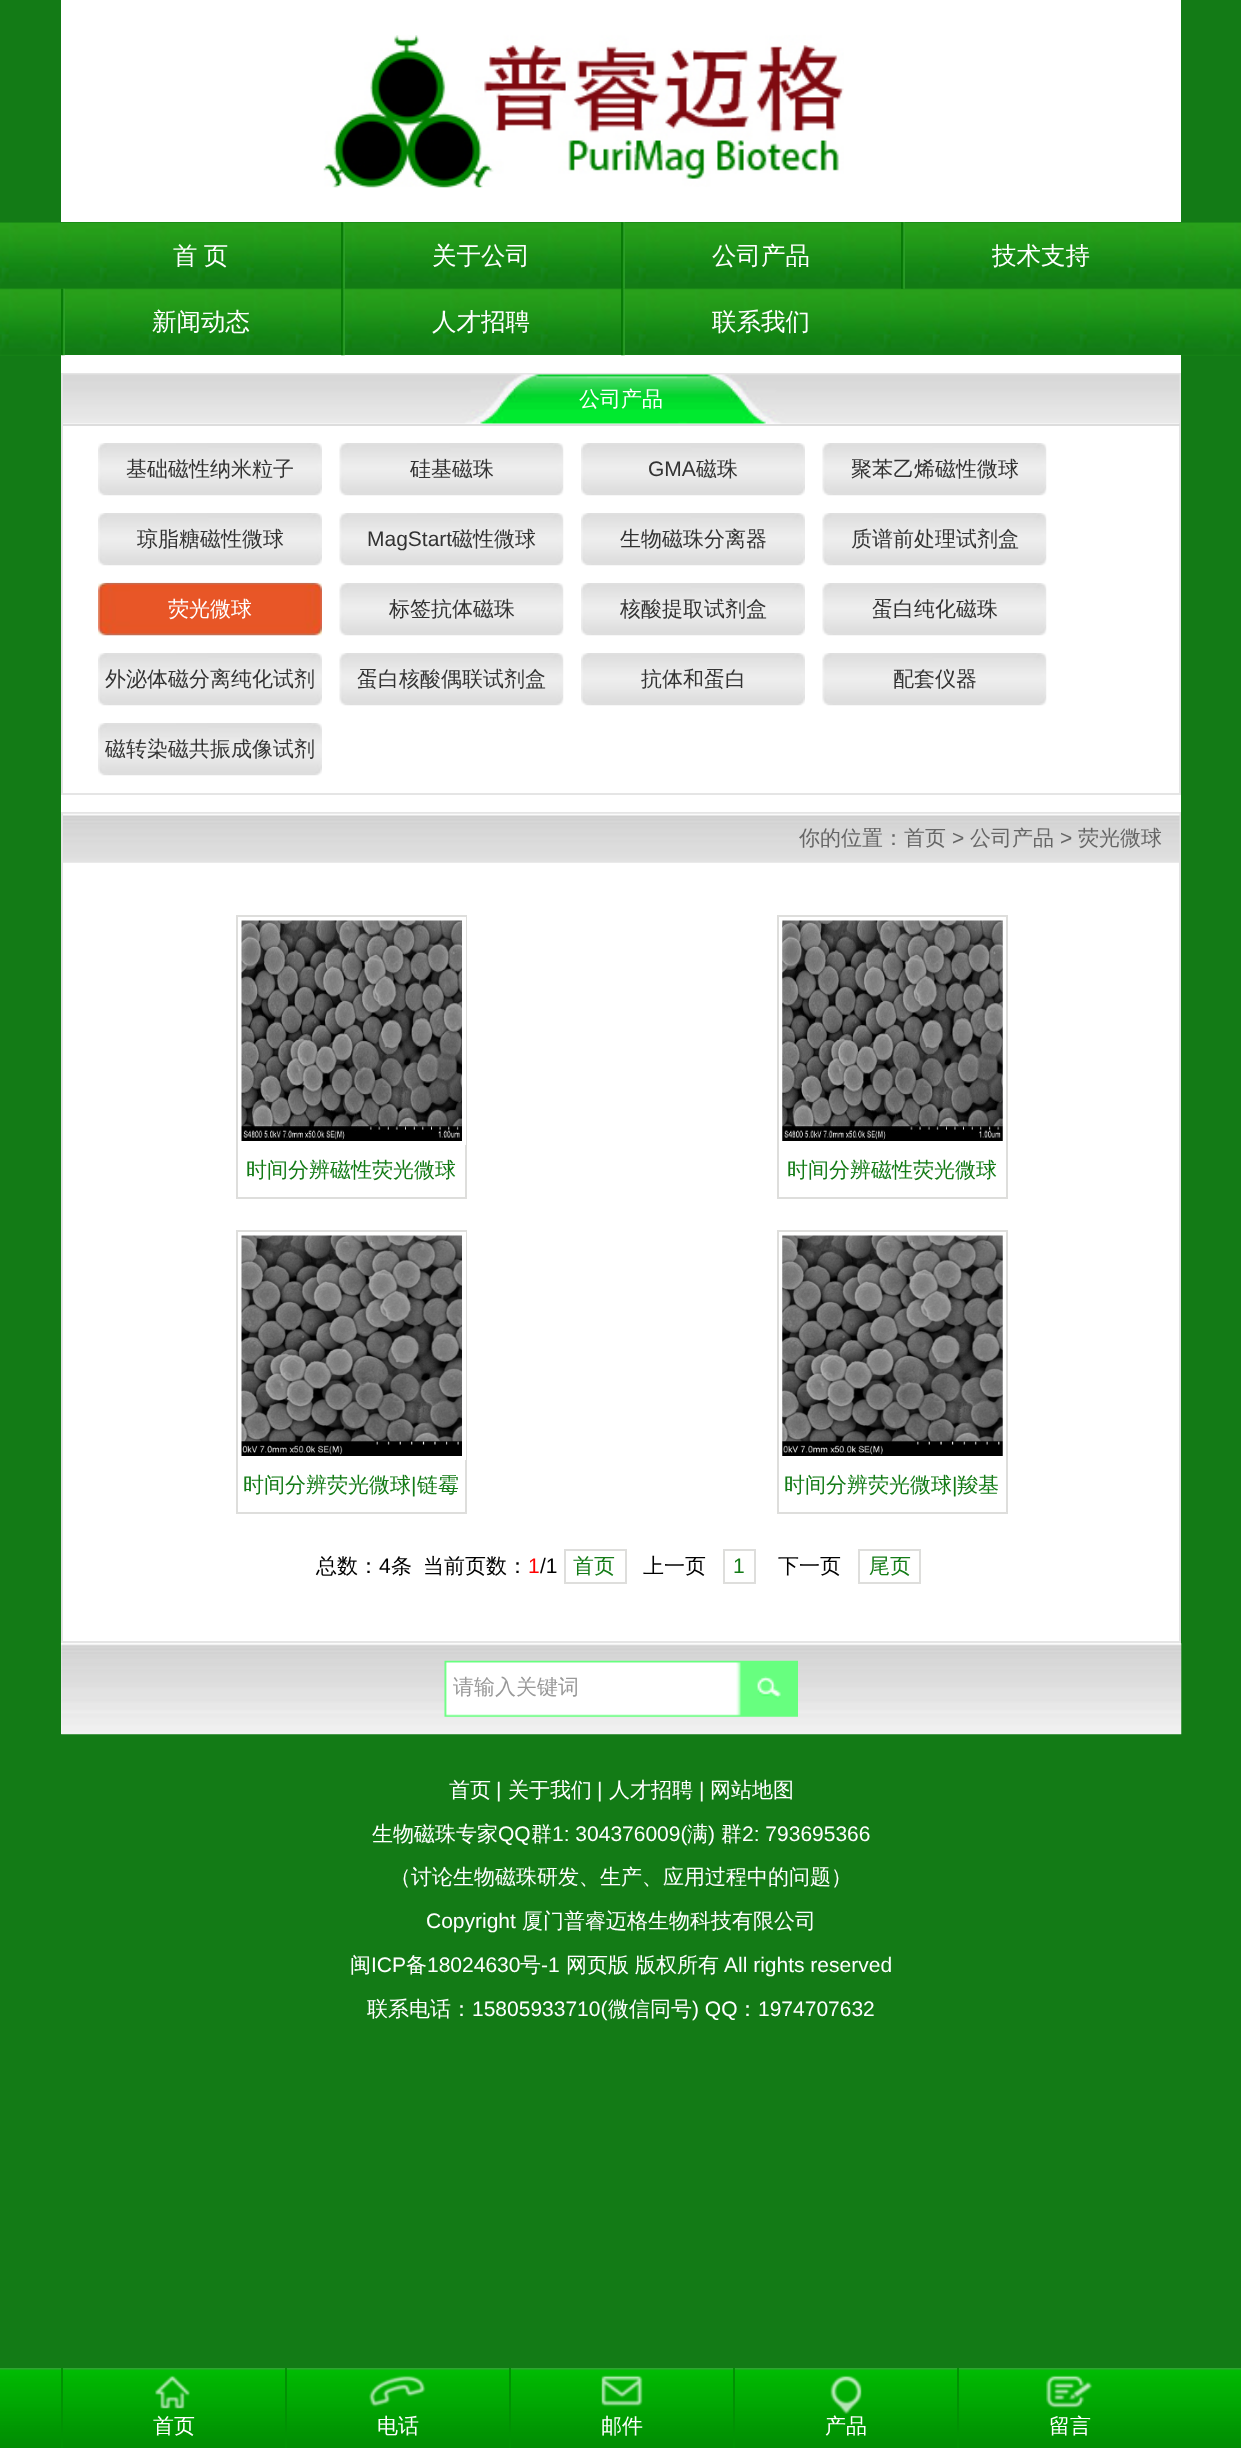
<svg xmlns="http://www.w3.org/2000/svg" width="1241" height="2448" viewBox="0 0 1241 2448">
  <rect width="100%" height="100%" fill="#137b16"/>
  <rect x="61" y="0" width="1120" height="222" fill="#ffffff"/>
  <image x="323" y="35" width="521" height="153" href="img1.png"/>
  <image x="0" y="222" width="1241" height="134" href="img2.png"/>
  <text x="173" y="264" word-spacing="-1" font-family="WenQuanYi Zen Hei" font-size="24.5" font-weight="500" fill="#ffffff">首 页</text>
  <image x="341" y="222" width="4" height="67" href="img3.png"/>
  <text x="432" y="264" font-family="WenQuanYi Zen Hei" font-size="24.5" font-weight="500" fill="#ffffff">关于公司</text>
  <image x="621" y="222" width="4" height="67" href="img4.png"/>
  <text x="712" y="264" font-family="WenQuanYi Zen Hei" font-size="24.5" font-weight="500" fill="#ffffff">公司产品</text>
  <image x="901" y="222" width="4" height="67" href="img5.png"/>
  <text x="992" y="264" font-family="WenQuanYi Zen Hei" font-size="24.5" font-weight="500" fill="#ffffff">技术支持</text>
  <rect x="61" y="355" width="1120" height="1286" fill="#ffffff"/>
  <image x="61" y="288" width="4" height="68" href="img6.png"/>
  <text x="152" y="330" font-family="WenQuanYi Zen Hei" font-size="24.5" font-weight="500" fill="#ffffff">新闻动态</text>
  <image x="341" y="289" width="4" height="67" href="img7.png"/>
  <text x="432" y="330" font-family="WenQuanYi Zen Hei" font-size="24.5" font-weight="500" fill="#ffffff">人才招聘</text>
  <image x="621" y="289" width="4" height="67" href="img8.png"/>
  <text x="712" y="330" font-family="WenQuanYi Zen Hei" font-size="24.5" font-weight="500" fill="#ffffff">联系我们</text>
  <rect x="62" y="374" width="1118" height="420" fill="none" stroke="#e5e5e5" stroke-width="2"/>
  <image x="63" y="374" width="1117" height="50" href="img9.png"/>
  <rect x="63" y="424" width="1117" height="2" fill="#dddddd"/>
  <text x="579" y="406" font-family="WenQuanYi Zen Hei" font-size="21" font-weight="500" fill="#ffffff">公司产品</text>
  <image x="98" y="443" width="224" height="53" href="img10.png"/>
  <text x="126" y="476" font-family="WenQuanYi Zen Hei" font-size="21" font-weight="500" fill="#333333">基础磁性纳米粒子</text>
  <image x="339" y="443" width="225" height="53" href="img11.png"/>
  <text x="410" y="476" font-family="WenQuanYi Zen Hei" font-size="21" font-weight="500" fill="#333333">硅基磁珠</text>
  <image x="581" y="443" width="224" height="53" href="img10.png"/>
  <text x="648" y="476" font-family="Liberation Sans" font-size="21" fill="#333333">GMA</text>
  <text x="696" y="476" font-family="WenQuanYi Zen Hei" font-size="21" font-weight="500" fill="#333333">磁珠</text>
  <image x="822" y="443" width="225" height="53" href="img11.png"/>
  <text x="851" y="476" font-family="WenQuanYi Zen Hei" font-size="21" font-weight="500" fill="#333333">聚苯乙烯磁性微球</text>
  <image x="98" y="513" width="224" height="53" href="img10.png"/>
  <text x="137" y="546" font-family="WenQuanYi Zen Hei" font-size="21" font-weight="500" fill="#333333">琼脂糖磁性微球</text>
  <image x="339" y="513" width="225" height="53" href="img11.png"/>
  <text x="367" y="546" font-family="Liberation Sans" font-size="21" fill="#333333">MagStart</text>
  <text x="452" y="546" font-family="WenQuanYi Zen Hei" font-size="21" font-weight="500" fill="#333333">磁性微球</text>
  <image x="581" y="513" width="224" height="53" href="img10.png"/>
  <text x="620" y="546" font-family="WenQuanYi Zen Hei" font-size="21" font-weight="500" fill="#333333">生物磁珠分离器</text>
  <image x="822" y="513" width="225" height="53" href="img11.png"/>
  <text x="851" y="546" font-family="WenQuanYi Zen Hei" font-size="21" font-weight="500" fill="#333333">质谱前处理试剂盒</text>
  <image x="98" y="582" width="224" height="54" href="img12.png"/>
  <text x="168" y="616" font-family="WenQuanYi Zen Hei" font-size="21" font-weight="500" fill="#ffffff">荧光微球</text>
  <image x="339" y="583" width="225" height="53" href="img11.png"/>
  <text x="389" y="616" font-family="WenQuanYi Zen Hei" font-size="21" font-weight="500" fill="#333333">标签抗体磁珠</text>
  <image x="581" y="583" width="224" height="53" href="img10.png"/>
  <text x="620" y="616" font-family="WenQuanYi Zen Hei" font-size="21" font-weight="500" fill="#333333">核酸提取试剂盒</text>
  <image x="822" y="583" width="225" height="53" href="img11.png"/>
  <text x="872" y="616" font-family="WenQuanYi Zen Hei" font-size="21" font-weight="500" fill="#333333">蛋白纯化磁珠</text>
  <image x="98" y="653" width="224" height="53" href="img10.png"/>
  <text x="105" y="686" font-family="WenQuanYi Zen Hei" font-size="21" font-weight="500" fill="#333333">外泌体磁分离纯化试剂</text>
  <image x="339" y="653" width="225" height="53" href="img11.png"/>
  <text x="357" y="686" font-family="WenQuanYi Zen Hei" font-size="21" font-weight="500" fill="#333333">蛋白核酸偶联试剂盒</text>
  <image x="581" y="653" width="224" height="53" href="img10.png"/>
  <text x="641" y="686" font-family="WenQuanYi Zen Hei" font-size="21" font-weight="500" fill="#333333">抗体和蛋白</text>
  <image x="822" y="653" width="225" height="53" href="img11.png"/>
  <text x="893" y="686" font-family="WenQuanYi Zen Hei" font-size="21" font-weight="500" fill="#333333">配套仪器</text>
  <image x="98" y="723" width="224" height="53" href="img10.png"/>
  <text x="105" y="756" font-family="WenQuanYi Zen Hei" font-size="21" font-weight="500" fill="#333333">磁转染磁共振成像试剂</text>
  <rect x="62" y="813" width="1118" height="829" fill="none" stroke="#e5e5e5" stroke-width="2"/>
  <image x="63" y="813" width="1117" height="50" href="img13.png"/>
  <text x="799" y="845" font-family="WenQuanYi Zen Hei" font-size="21" font-weight="500" fill="#666666">你的位置：首页</text>
  <text x="952" y="845" font-family="Liberation Sans" font-size="21" fill="#666666">&gt;</text>
  <text x="970" y="845" font-family="WenQuanYi Zen Hei" font-size="21" font-weight="500" fill="#666666">公司产品</text>
  <text x="1060" y="845" font-family="Liberation Sans" font-size="21" fill="#666666">&gt;</text>
  <text x="1078" y="845" font-family="WenQuanYi Zen Hei" font-size="21" font-weight="500" fill="#666666">荧光微球</text>
  <rect x="237" y="916" width="229" height="282" fill="none" stroke="#dededc" stroke-width="2"/>
  <rect x="240" y="919" width="224" height="224" fill="none" stroke="#ffffff" stroke-width="4"/>
  <image x="241" y="920" width="221" height="221" href="img14.png"/>
  <text x="246" y="1177" font-family="WenQuanYi Zen Hei" font-size="21" font-weight="500" fill="#137b16">时间分辨磁性荧光微球</text>
  <rect x="778" y="916" width="229" height="282" fill="none" stroke="#dededc" stroke-width="2"/>
  <image x="782" y="920" width="221" height="221" href="img15.png"/>
  <text x="787" y="1177" font-family="WenQuanYi Zen Hei" font-size="21" font-weight="500" fill="#137b16">时间分辨磁性荧光微球</text>
  <rect x="237" y="1231" width="229" height="282" fill="none" stroke="#dededc" stroke-width="2"/>
  <rect x="240" y="1234" width="224" height="224" fill="none" stroke="#ffffff" stroke-width="4"/>
  <image x="241" y="1235" width="221" height="221" href="img16.png"/>
  <text x="243" y="1492" font-family="WenQuanYi Zen Hei" font-size="21" font-weight="500" fill="#137b16">时间分辨荧光微球</text>
  <text x="411" y="1492" font-family="Liberation Sans" font-size="21" fill="#137b16">|</text>
  <text x="417" y="1492" font-family="WenQuanYi Zen Hei" font-size="21" font-weight="500" fill="#137b16">链霉</text>
  <rect x="778" y="1231" width="229" height="282" fill="none" stroke="#dededc" stroke-width="2"/>
  <image x="782" y="1235" width="221" height="221" href="img17.png"/>
  <text x="784" y="1492" font-family="WenQuanYi Zen Hei" font-size="21" font-weight="500" fill="#137b16">时间分辨荧光微球</text>
  <text x="952" y="1492" font-family="Liberation Sans" font-size="21" fill="#137b16">|</text>
  <text x="957" y="1492" font-family="WenQuanYi Zen Hei" font-size="21" font-weight="500" fill="#137b16">羧基</text>
  <text x="316" y="1573" font-family="WenQuanYi Zen Hei" font-size="21" font-weight="500" fill="#000000">总数：</text>
  <text x="379" y="1573" font-family="Liberation Sans" font-size="21" fill="#000000">4</text>
  <text x="391" y="1573" font-family="WenQuanYi Zen Hei" font-size="21" font-weight="500" fill="#000000">条</text>
  <text x="423" y="1573" font-family="WenQuanYi Zen Hei" font-size="21" font-weight="500" fill="#000000">当前页数：</text>
  <text x="528" y="1573" font-family="Liberation Sans" font-size="21" fill="#ff0000">1</text>
  <text x="540" y="1573" font-family="Liberation Sans" font-size="21" fill="#000000">/1</text>
  <rect x="565" y="1550" width="61" height="33" fill="none" stroke="#dededc" stroke-width="2"/>
  <text x="573" y="1573" font-family="WenQuanYi Zen Hei" font-size="21" font-weight="500" fill="#137b16">首页</text>
  <text x="643" y="1573" font-family="WenQuanYi Zen Hei" font-size="21" font-weight="500" fill="#000000">上一页</text>
  <rect x="724" y="1550" width="31" height="33" fill="none" stroke="#dededc" stroke-width="2"/>
  <text x="733" y="1573" font-family="Liberation Sans" font-size="21" fill="#137b16">1</text>
  <text x="778" y="1573" font-family="WenQuanYi Zen Hei" font-size="21" font-weight="500" fill="#000000">下一页</text>
  <rect x="859" y="1550" width="61" height="33" fill="none" stroke="#dededc" stroke-width="2"/>
  <text x="869" y="1573" font-family="WenQuanYi Zen Hei" font-size="21" font-weight="500" fill="#137b16">尾页</text>
  <rect x="61" y="1643" width="1120" height="91" fill="#ffffff"/>
  <image x="61" y="1643" width="1121" height="92" href="img18.png"/>
  <image x="444" y="1660" width="354" height="57" href="img19.png"/>
  <text x="453" y="1694" font-family="WenQuanYi Zen Hei" font-size="21" font-weight="500" fill="#999999">请输入关键词</text>
  <text x="449" y="1797" font-family="WenQuanYi Zen Hei" font-size="21" font-weight="500" fill="#ffffff">首页</text>
  <text x="496" y="1797" font-family="Liberation Sans" font-size="21" fill="#ffffff">|</text>
  <text x="508" y="1797" font-family="WenQuanYi Zen Hei" font-size="21" font-weight="500" fill="#ffffff">关于我们</text>
  <text x="597" y="1797" font-family="Liberation Sans" font-size="21" fill="#ffffff">|</text>
  <text x="609" y="1797" font-family="WenQuanYi Zen Hei" font-size="21" font-weight="500" fill="#ffffff">人才招聘</text>
  <text x="699" y="1797" font-family="Liberation Sans" font-size="21" fill="#ffffff">|</text>
  <text x="710" y="1797" font-family="WenQuanYi Zen Hei" font-size="21" font-weight="500" fill="#ffffff">网站地图</text>
  <text x="372" y="1841" font-family="WenQuanYi Zen Hei" font-size="21" font-weight="500" fill="#ffffff">生物磁珠专家</text>
  <text x="498" y="1841" font-family="Liberation Sans" font-size="21" fill="#ffffff">QQ</text>
  <text x="531" y="1841" font-family="WenQuanYi Zen Hei" font-size="21" font-weight="500" fill="#ffffff">群</text>
  <text x="552" y="1841" font-family="Liberation Sans" font-size="21" fill="#ffffff">1: 304376009(</text>
  <text x="687" y="1841" font-family="WenQuanYi Zen Hei" font-size="21" font-weight="500" fill="#ffffff">满</text>
  <text x="708" y="1841" font-family="Liberation Sans" font-size="21" fill="#ffffff">)</text>
  <text x="721" y="1841" font-family="WenQuanYi Zen Hei" font-size="21" font-weight="500" fill="#ffffff">群</text>
  <text x="742" y="1841" font-family="Liberation Sans" font-size="21" fill="#ffffff">2: 793695366</text>
  <text x="390" y="1884" font-family="WenQuanYi Zen Hei" font-size="21" font-weight="500" fill="#ffffff">（讨论生物磁珠研发、生产、应用过程中的问题）</text>
  <text x="426" y="1928" font-family="Liberation Sans" font-size="21" fill="#ffffff">Copyright</text>
  <text x="522" y="1928" font-family="WenQuanYi Zen Hei" font-size="21" font-weight="500" fill="#ffffff">厦门普睿迈格生物科技有限公司</text>
  <text x="350" y="1972" font-family="WenQuanYi Zen Hei" font-size="21" font-weight="500" fill="#ffffff">闽</text>
  <text x="371" y="1972" font-family="Liberation Sans" font-size="21" fill="#ffffff">ICP</text>
  <text x="406" y="1972" font-family="WenQuanYi Zen Hei" font-size="21" font-weight="500" fill="#ffffff">备</text>
  <text x="427" y="1972" font-family="Liberation Sans" font-size="21" fill="#ffffff">18024630</text>
  <text x="520" y="1972" font-family="WenQuanYi Zen Hei" font-size="21" font-weight="500" fill="#ffffff">号</text>
  <text x="541" y="1972" font-family="Liberation Sans" font-size="21" fill="#ffffff">-1</text>
  <text x="566" y="1972" font-family="WenQuanYi Zen Hei" font-size="21" font-weight="500" fill="#ffffff">网页版</text>
  <text x="635" y="1972" font-family="WenQuanYi Zen Hei" font-size="21" font-weight="500" fill="#ffffff">版权所有</text>
  <text x="724" y="1972" font-family="Liberation Sans" font-size="21" fill="#ffffff">All rights reserved</text>
  <text x="367" y="2016" font-family="WenQuanYi Zen Hei" font-size="21" font-weight="500" fill="#ffffff">联系电话：</text>
  <text x="472" y="2016" font-family="Liberation Sans" font-size="21" fill="#ffffff">15805933710(</text>
  <text x="608" y="2016" font-family="WenQuanYi Zen Hei" font-size="21" font-weight="500" fill="#ffffff">微信同号</text>
  <text x="692" y="2016" font-family="Liberation Sans" font-size="21" fill="#ffffff">) QQ</text>
  <text x="737" y="2016" font-family="WenQuanYi Zen Hei" font-size="21" font-weight="500" fill="#ffffff">：</text>
  <text x="758" y="2016" font-family="Liberation Sans" font-size="21" fill="#ffffff">1974707632</text>
  <image x="0" y="2368" width="1241" height="80" href="img20.png"/>
  <image x="155" y="2375" width="35" height="34" href="img21.png"/>
  <rect x="61" y="2368" width="2" height="80" fill="#019203"/>
  <text x="153" y="2433" font-family="WenQuanYi Zen Hei" font-size="21" font-weight="500" fill="#ffffff">首页</text>
  <image x="369" y="2375" width="57" height="32" href="img22.png"/>
  <rect x="285" y="2368" width="2" height="80" fill="#019203"/>
  <text x="377" y="2433" font-family="WenQuanYi Zen Hei" font-size="21" font-weight="500" fill="#ffffff">电话</text>
  <image x="601" y="2375" width="42" height="32" href="img23.png"/>
  <rect x="509" y="2368" width="2" height="80" fill="#019203"/>
  <text x="601" y="2433" font-family="WenQuanYi Zen Hei" font-size="21" font-weight="500" fill="#ffffff">邮件</text>
  <image x="830" y="2375" width="32" height="39" href="img24.png"/>
  <rect x="733" y="2368" width="2" height="80" fill="#019203"/>
  <text x="825" y="2433" font-family="WenQuanYi Zen Hei" font-size="21" font-weight="500" fill="#ffffff">产品</text>
  <image x="1046" y="2375" width="47" height="34" href="img25.png"/>
  <rect x="957" y="2368" width="2" height="80" fill="#019203"/>
  <text x="1049" y="2433" font-family="WenQuanYi Zen Hei" font-size="21" font-weight="500" fill="#ffffff">留言</text>
</svg>
